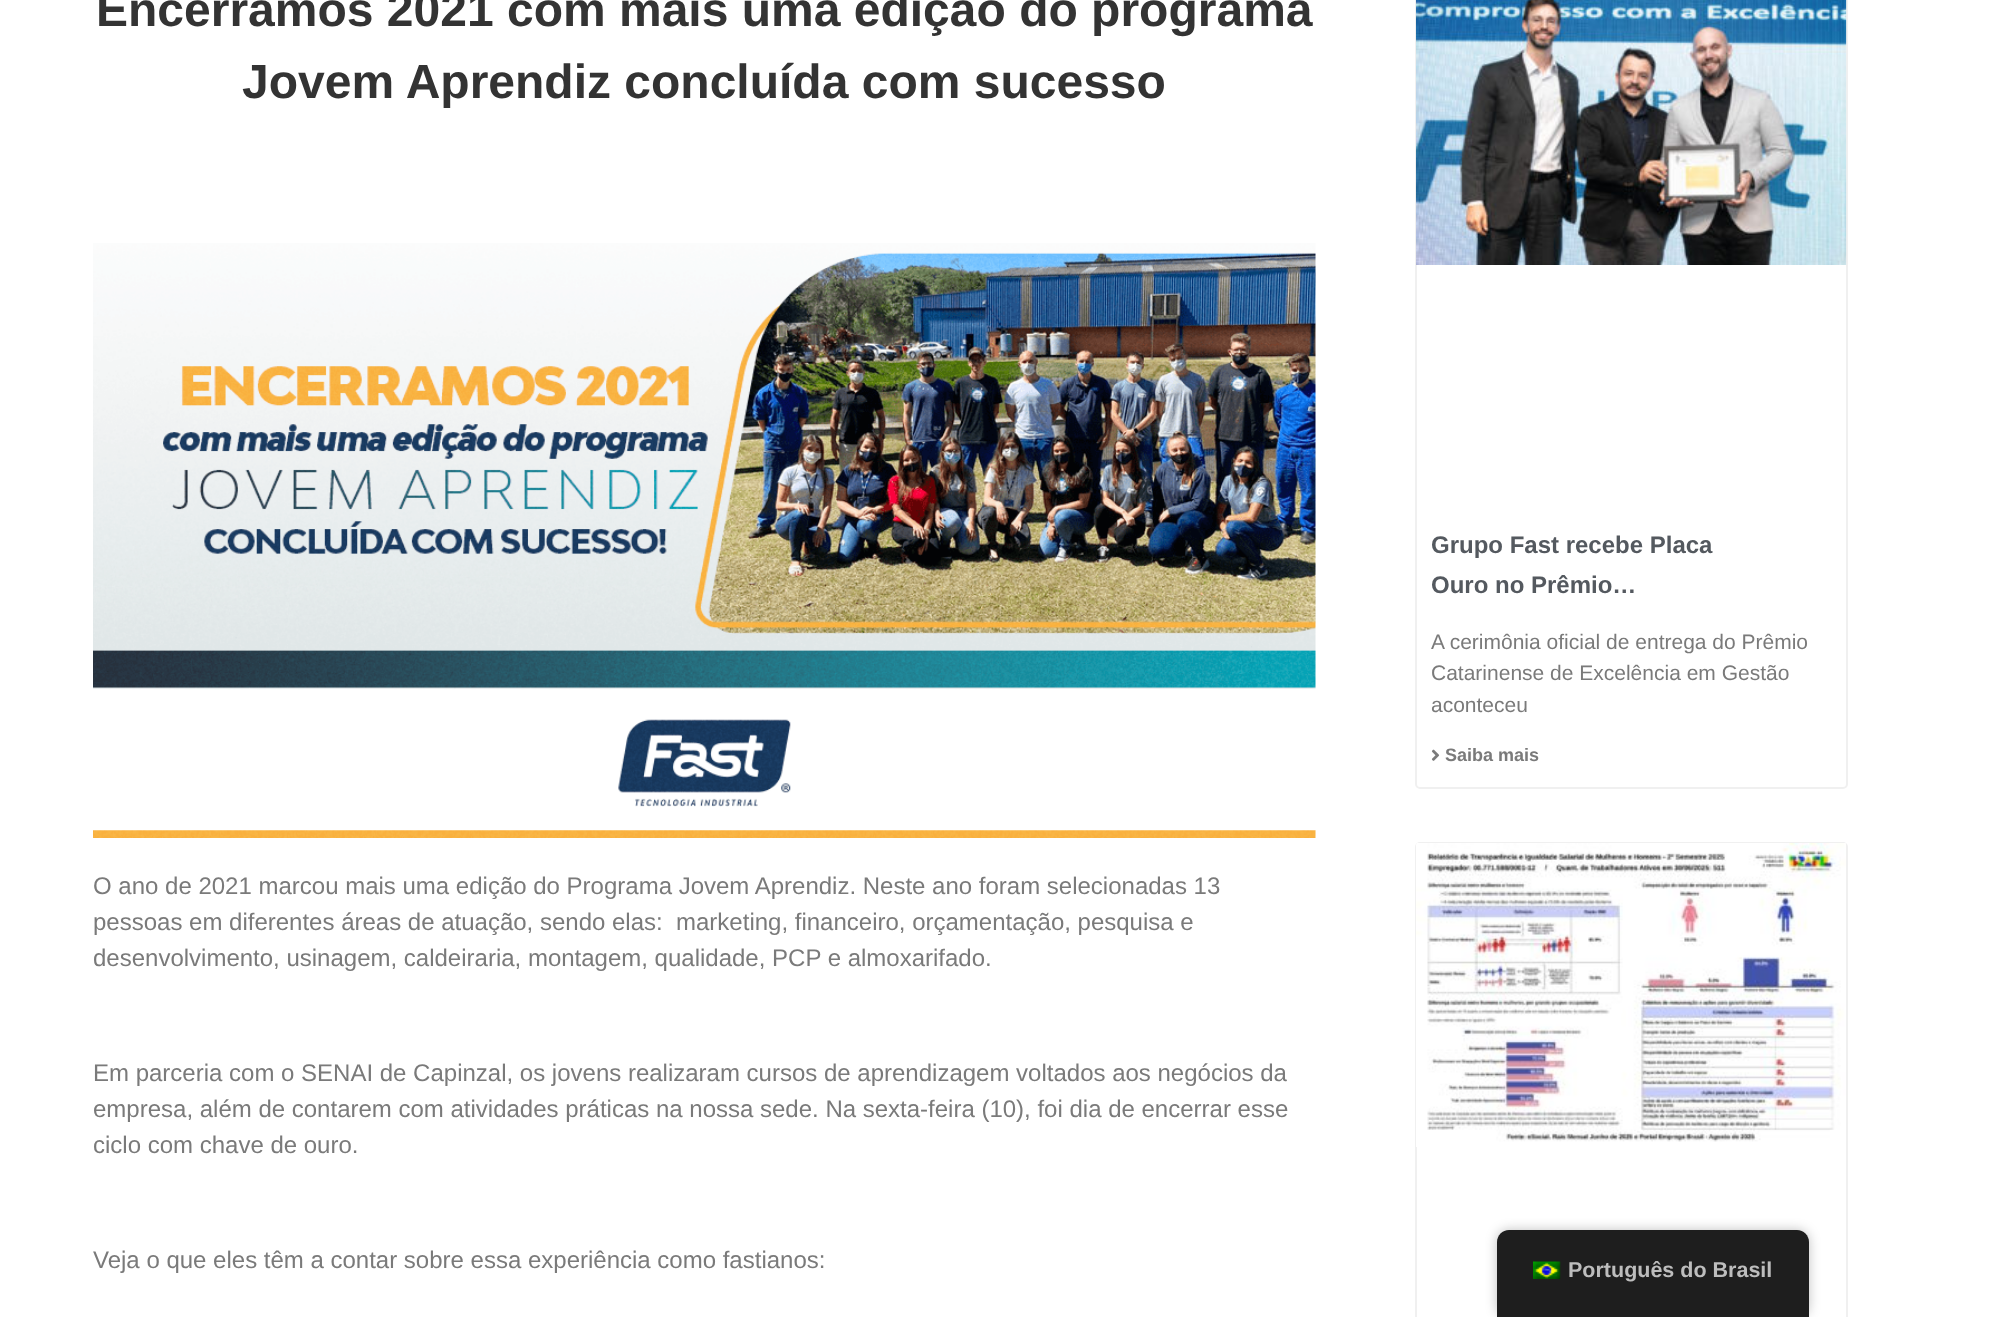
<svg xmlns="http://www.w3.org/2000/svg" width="2009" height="1317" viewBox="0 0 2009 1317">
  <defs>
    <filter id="blur1" x="-50%" y="-200%" width="200%" height="500%"><feGaussianBlur stdDeviation="6"/></filter>
  </defs>
  <rect width="100%" height="100%" fill="#ffffff"/>
  <text x="96" y="26" font-family="Liberation Sans" font-size="48" font-weight="bold" fill="#333333">Encerramos 2021 com mais uma edição do programa</text>
  <text x="242" y="98" font-family="Liberation Sans" font-size="48" font-weight="bold" fill="#333333">Jovem Aprendiz concluída com sucesso</text>
  <image x="93" y="243" width="1223" height="595" href="img1.png"/>
  <text x="93" y="894" font-family="Liberation Sans" font-size="24" fill="#7a7a7a">O ano de 2021 marcou mais uma edição do Programa Jovem Aprendiz. Neste ano foram selecionadas 13</text>
  <text x="93" y="930" font-family="Liberation Sans" font-size="24" fill="#7a7a7a" xml:space="preserve">pessoas em diferentes áreas de atuação, sendo elas:  marketing, financeiro, orçamentação, pesquisa e</text>
  <text x="93" y="966" font-family="Liberation Sans" font-size="24" fill="#7a7a7a">desenvolvimento, usinagem, caldeiraria, montagem, qualidade, PCP e almoxarifado.</text>
  <text x="93" y="1081" font-family="Liberation Sans" font-size="24" fill="#7a7a7a">Em parceria com o SENAI de Capinzal, os jovens realizaram cursos de aprendizagem voltados aos negócios da</text>
  <text x="93" y="1117" font-family="Liberation Sans" font-size="24" fill="#7a7a7a">empresa, além de contarem com atividades práticas na nossa sede. Na sexta-feira (10), foi dia de encerrar esse</text>
  <text x="93" y="1153" font-family="Liberation Sans" font-size="24" fill="#7a7a7a">ciclo com chave de ouro.</text>
  <text x="93" y="1268" font-family="Liberation Sans" font-size="24" fill="#7a7a7a">Veja o que eles têm a contar sobre essa experiência como fastianos:</text>
  <rect x="1416" y="-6" width="431" height="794" rx="4" fill="none" stroke="#f0f0f0" stroke-width="2"/>
  <image x="1416" y="0" width="431" height="265" href="img2.png"/>
  <text x="1431" y="553" font-family="Liberation Sans" font-size="24" font-weight="bold" fill="#54595f">Grupo Fast recebe Placa</text>
  <text x="1431" y="593" font-family="Liberation Sans" font-size="24" font-weight="bold" fill="#54595f">Ouro no Prêmio…</text>
  <text x="1431" y="649" font-family="Liberation Sans" font-size="21" fill="#7a7a7a">A cerimônia oficial de entrega do Prêmio</text>
  <text x="1431" y="680" font-family="Liberation Sans" font-size="21" fill="#7a7a7a">Catarinense de Excelência em Gestão</text>
  <text x="1431" y="712" font-family="Liberation Sans" font-size="21" fill="#7a7a7a">aconteceu</text>
  <image x="1431" y="749" width="9" height="12" href="img3.png"/>
  <text x="1445" y="761" font-family="Liberation Sans" font-size="18" font-weight="bold" fill="#7a7a7a">Saiba mais</text>
  <rect x="1416" y="843" width="431" height="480" rx="4" fill="none" stroke="#f0f0f0" stroke-width="2"/>
  <image x="1416" y="843" width="430" height="304" href="img4.png"/>
  <rect x="1497" y="1230" width="312" height="87" rx="12" fill="#000000" fill-opacity="0.25" filter="url(#blur1)"/>
  <path d="M1509 1230H1797C1803.5 1230 1809 1235.5 1809 1242V1317H1497V1242C1497 1235.5 1502.5 1230 1509 1230Z" fill="#1e1e1e"/>
  <image x="1533" y="1261" width="28" height="18" href="img5.png"/>
  <text x="1568" y="1277" font-family="Liberation Sans" font-size="21.5" font-weight="bold" fill="#bdbdbd">Português do Brasil</text>
</svg>
